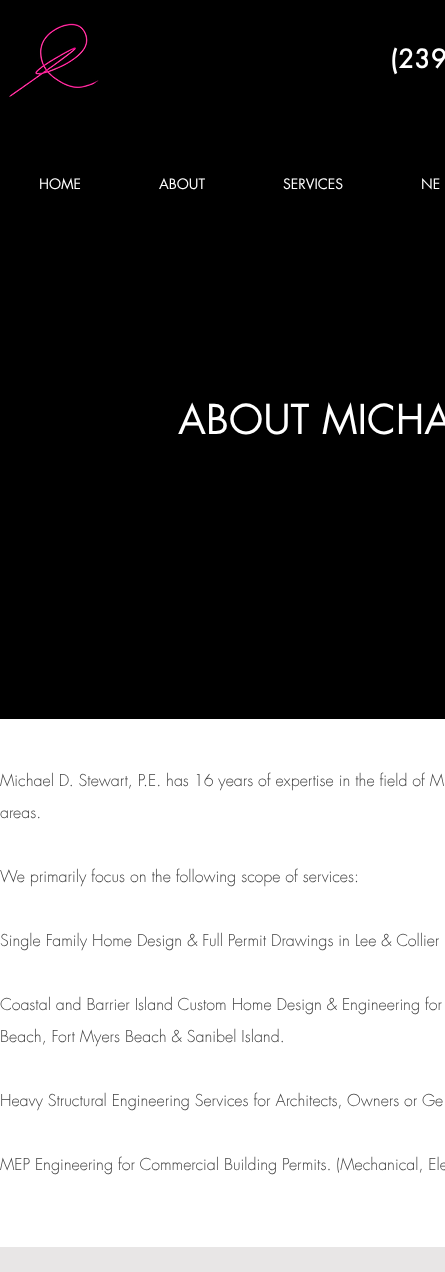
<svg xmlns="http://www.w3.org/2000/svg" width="445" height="1272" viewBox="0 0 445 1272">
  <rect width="100%" height="100%" fill="#ffffff"/>
  <rect x="0" y="0" width="445" height="719" fill="#000000"/>
  <image x="9" y="23" width="90" height="74" href="img1.png"/>
  <text x="390" y="68" font-family="futura" font-size="25" font-weight="bold" letter-spacing="1" fill="#ffffff">(239</text>
  <text x="39" y="189" font-family="futura" font-size="14" fill="#ffffff">HOME</text>
  <text x="159" y="189" font-family="futura" font-size="14" fill="#ffffff">ABOUT</text>
  <text x="283" y="189" font-family="futura" font-size="14" fill="#ffffff">SERVICES</text>
  <text x="421" y="189" font-family="futura" font-size="14" fill="#ffffff">NE</text>
  <text x="178" y="434" font-family="futura" font-size="40" fill="#ffffff">ABOUT MICHA</text>
  <text x="0" y="786" font-family="futura" font-size="16" font-weight="300" fill="#414141">Michael D. Stewart, P.E. has 16 years of expertise in the field of M</text>
  <text x="0" y="818" font-family="futura" font-size="16" font-weight="300" fill="#414141">areas.</text>
  <text x="0" y="882" font-family="futura" font-size="16" font-weight="300" fill="#414141">We primarily focus on the following scope of services:</text>
  <text x="0" y="946" font-family="futura" font-size="16" font-weight="300" fill="#414141">Single Family Home Design &amp; Full Permit Drawings in Lee &amp; Collier</text>
  <text x="0" y="1010" font-family="futura" font-size="16" font-weight="300" fill="#414141">Coastal and Barrier Island Custom Home Design &amp; Engineering for</text>
  <text x="0" y="1042" font-family="futura" font-size="16" font-weight="300" fill="#414141">Beach, Fort Myers Beach &amp; Sanibel Island.</text>
  <text x="0" y="1106" font-family="futura" font-size="16" font-weight="300" fill="#414141">Heavy Structural Engineering Services for Architects, Owners or Ge</text>
  <text x="0" y="1170" font-family="futura" font-size="16" font-weight="300" fill="#414141">MEP Engineering for Commercial Building Permits. (Mechanical, Ele</text>
  <rect x="0" y="1247" width="445" height="25" fill="#e8e6e6"/>
</svg>
